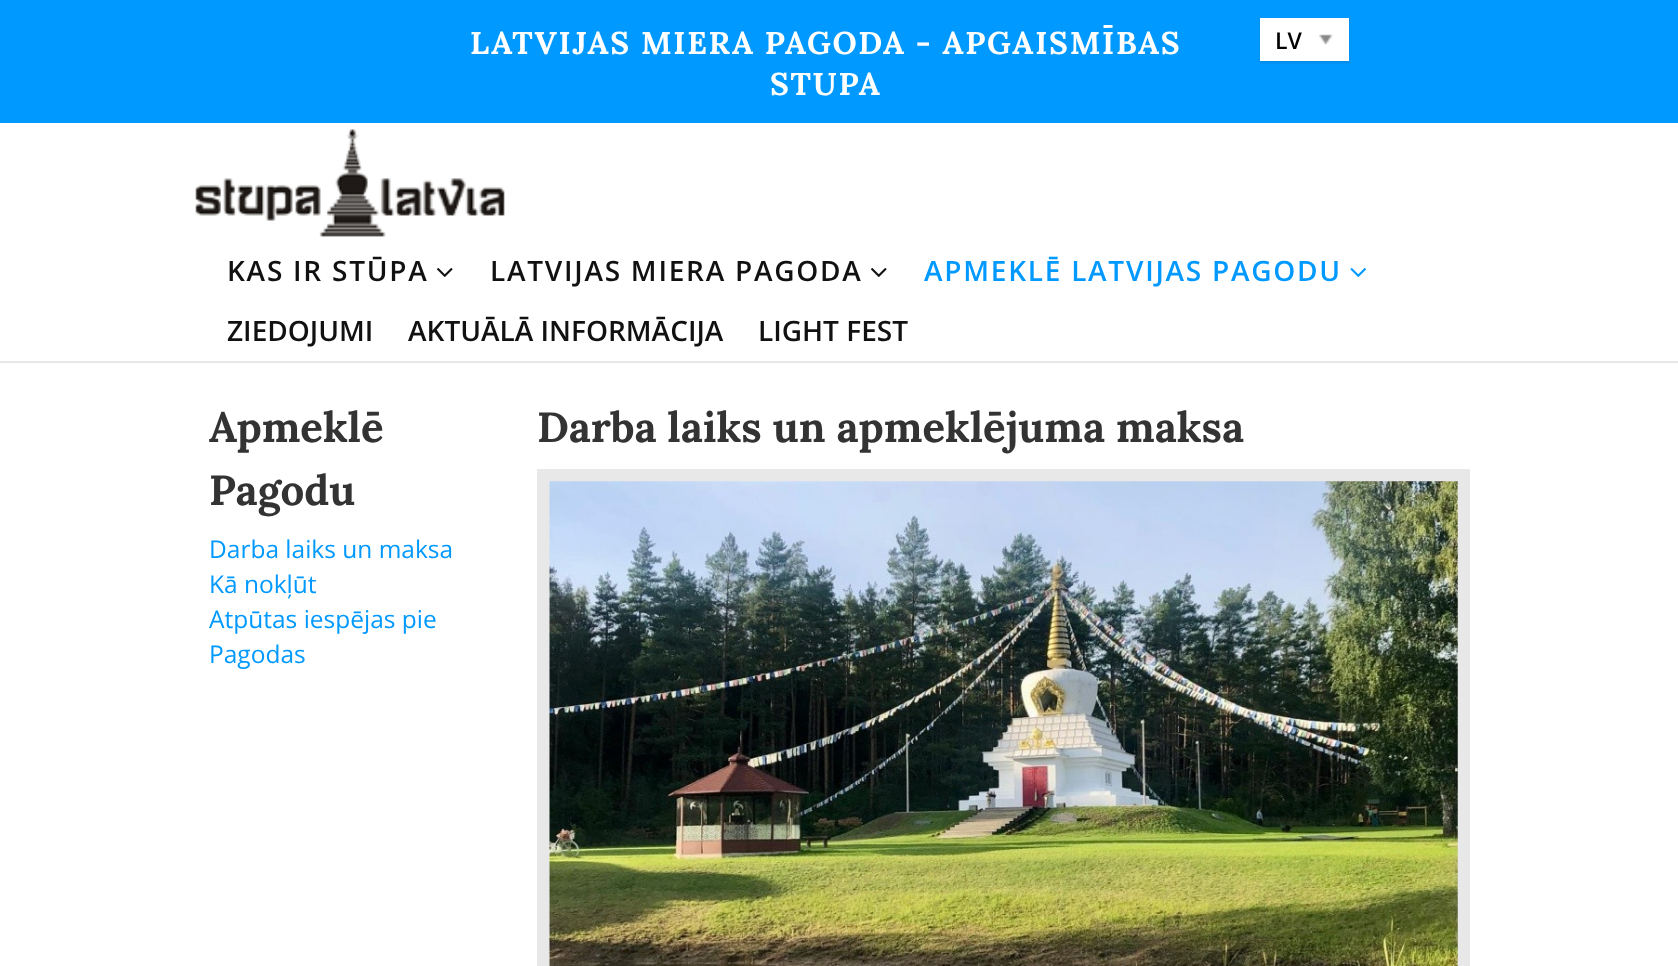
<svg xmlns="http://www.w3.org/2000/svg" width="1678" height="966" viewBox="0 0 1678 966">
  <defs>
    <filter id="blur1" x="-50%" y="-200%" width="200%" height="500%"><feGaussianBlur stdDeviation="1"/></filter>
  </defs>
  <rect width="100%" height="100%" fill="#ffffff"/>
  <rect x="0" y="0" width="1678" height="123" fill="#0099ff"/>
  <text x="470" y="54" font-family="Lora" font-size="31.5" font-weight="bold" letter-spacing="1.75" fill="#ffffff">LATVIJAS MIERA PAGODA - APGAISMĪBAS</text>
  <text x="770" y="95" font-family="Lora" font-size="31.5" font-weight="bold" letter-spacing="1.75" fill="#ffffff">STUPA</text>
  <rect x="1260" y="19" width="89" height="44" fill="#000000" fill-opacity="0.1" filter="url(#blur1)"/>
  <rect x="1260" y="18" width="89" height="43" fill="#ffffff"/>
  <text x="1275" y="49" font-family="Open Sans" font-size="23" font-weight="600" fill="#000000">LV</text>
  <image x="1319" y="34" width="14" height="11" href="img1.png"/>
  <rect x="0" y="361" width="1678" height="2" fill="#e7e7e7"/>
  <image x="195" y="129" width="310" height="108" href="img2.png"/>
  <text x="227" y="281" font-family="Open Sans" font-size="28" font-weight="600" letter-spacing="1.75" fill="#111111">KAS IR STŪPA</text>
  <image x="437" y="268" width="16" height="9" href="img3.png"/>
  <text x="490" y="281" font-family="Open Sans" font-size="28" font-weight="600" letter-spacing="1.75" fill="#111111">LATVIJAS MIERA PAGODA</text>
  <image x="871" y="268" width="16" height="9" href="img3.png"/>
  <text x="924" y="281" font-family="Open Sans" font-size="28" font-weight="600" letter-spacing="1.75" fill="#0099ff">APMEKLĒ LATVIJAS PAGODU</text>
  <image x="1350" y="268" width="16" height="9" href="img4.png"/>
  <text x="227" y="341" font-family="Open Sans" font-size="28" font-weight="600" fill="#111111">ZIEDOJUMI</text>
  <text x="408" y="341" font-family="Open Sans" font-size="28" font-weight="600" fill="#111111">AKTUĀLĀ INFORMĀCIJA</text>
  <text x="758" y="341" font-family="Open Sans" font-size="28" font-weight="600" fill="#111111">LIGHT FEST</text>
  <text x="209" y="442" font-family="Lora" font-size="42" font-weight="bold" fill="#333333">Apmeklē</text>
  <text x="209" y="505" font-family="Lora" font-size="42" font-weight="bold" fill="#333333">Pagodu</text>
  <text x="209" y="558" font-family="Open Sans" font-size="24.5" fill="#0099ff">Darba laiks un maksa</text>
  <text x="209" y="593" font-family="Open Sans" font-size="24.5" fill="#0099ff">Kā nokļūt</text>
  <text x="209" y="628" font-family="Open Sans" font-size="24.5" fill="#0099ff">Atpūtas iespējas pie</text>
  <text x="209" y="663" font-family="Open Sans" font-size="24.5" fill="#0099ff">Pagodas</text>
  <text x="537" y="442" font-family="Lora" font-size="42" font-weight="bold" fill="#333333">Darba laiks un apmeklējuma maksa</text>
  <rect x="537" y="469" width="933" height="497" fill="#e8e8e8"/>
  <image x="549" y="481" width="909" height="485" href="img5.png"/>
</svg>
